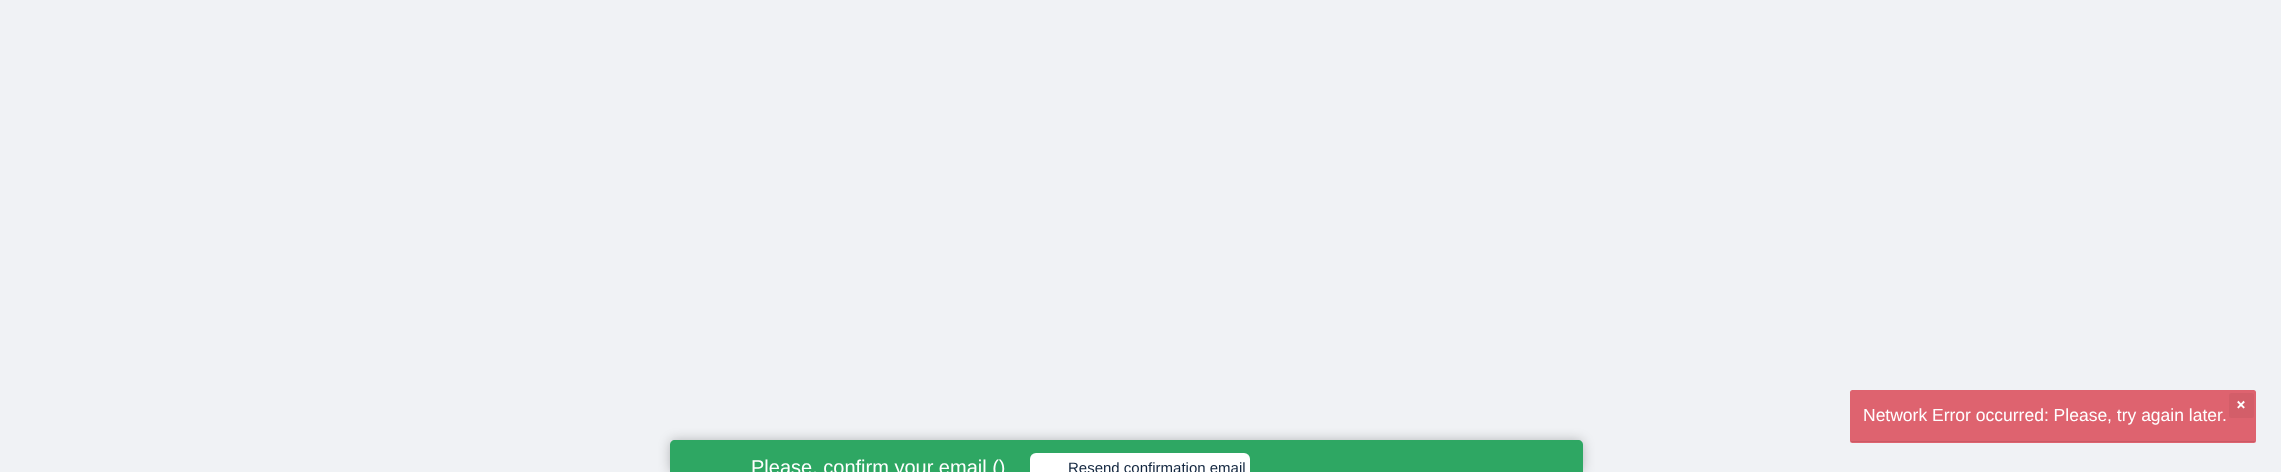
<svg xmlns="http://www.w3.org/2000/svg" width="2281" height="472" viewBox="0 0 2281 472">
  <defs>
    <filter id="blur1" x="-50%" y="-200%" width="200%" height="500%"><feGaussianBlur stdDeviation="6"/></filter>
  </defs>
  <rect width="100%" height="100%" fill="#f0f2f5"/>
  <rect x="1850" y="390" width="406" height="53" rx="2.5" fill="#de636f"/>
  <rect x="1851" y="441" width="404" height="1" fill="#ca5a65"/>
  <rect x="2229" y="393" width="25" height="25" rx="2.5" fill="#d35e69"/>
  <text x="2236" y="411" font-family="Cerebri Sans" font-size="19" font-weight="600" fill="#ffffff">×</text>
  <text x="1863" y="421" font-family="Liberation Sans" font-size="17.5" fill="#ffffff">Network Error occurred: Please, try again later.</text>
  <rect x="670" y="440" width="913" height="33" rx="5" fill="#000000" fill-opacity="0.25" filter="url(#blur1)"/>
  <path d="M675 440H1578C1581 440 1583 442 1583 445V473H670V445C670 442 672 440 675 440Z" fill="#2ea763"/>
  <text x="751" y="474" font-family="Liberation Sans" font-size="20" fill="#ffffff">Please, confirm your email ()</text>
  <rect x="1030" y="453" width="220" height="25" rx="6" fill="#ffffff"/>
  <text x="1068" y="473" font-family="Liberation Sans" font-size="15" fill="#12263f">Resend confirmation email</text>
</svg>
